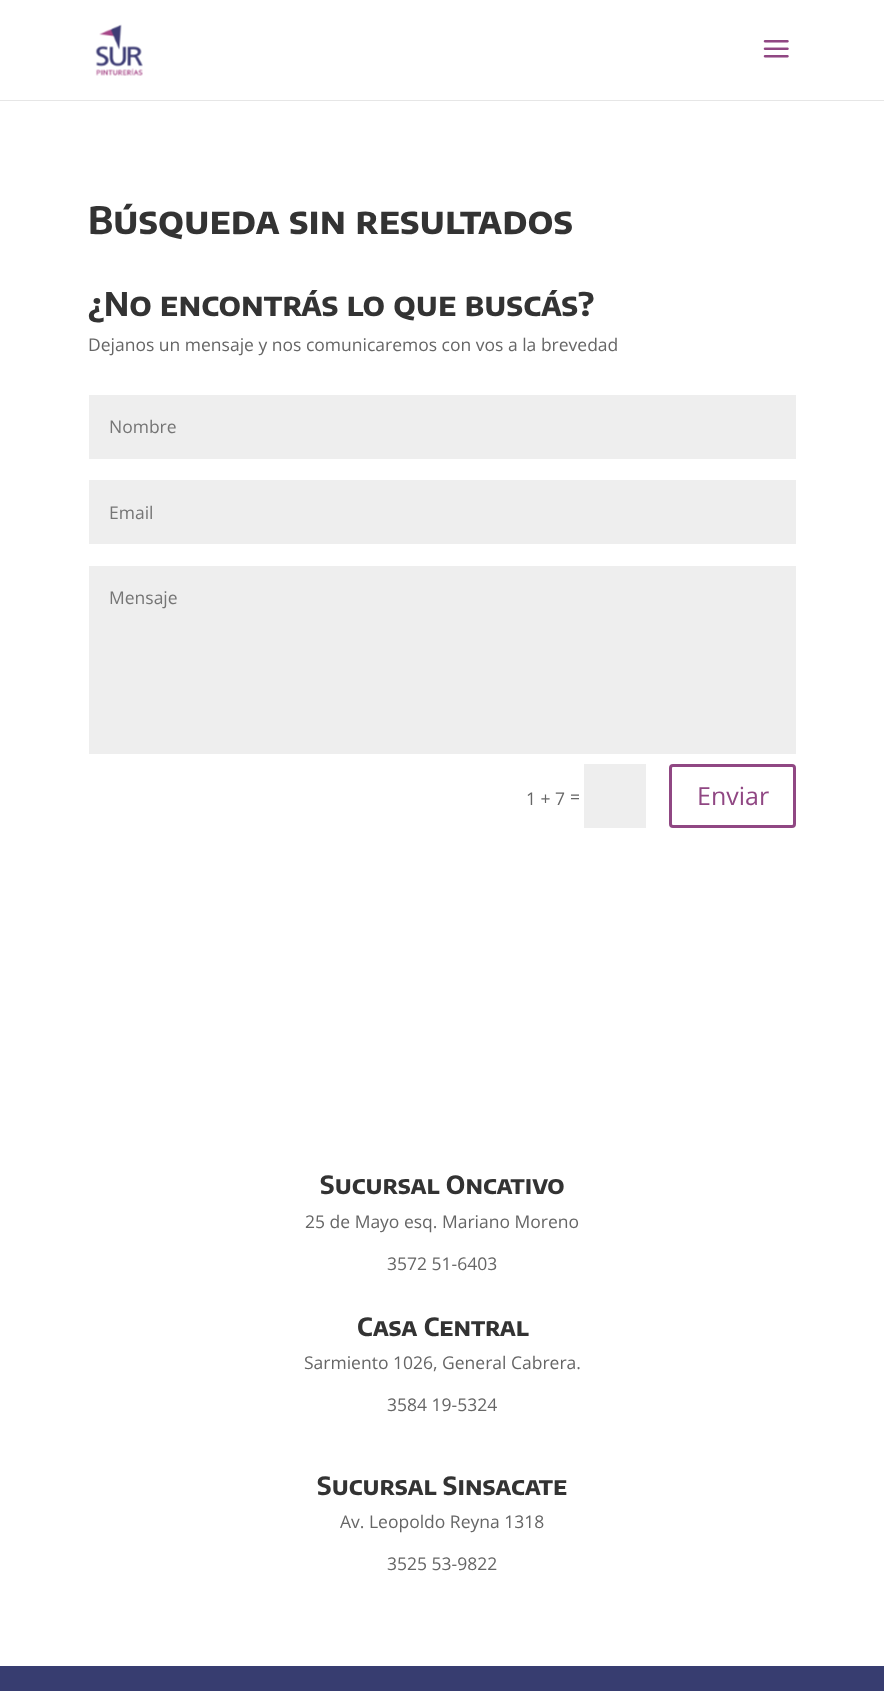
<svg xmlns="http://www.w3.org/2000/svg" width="884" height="1691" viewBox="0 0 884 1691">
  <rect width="100%" height="100%" fill="#ffffff"/>
  <rect x="0" y="100" width="884" height="1" fill="#e6e6e6"/>
  <image x="95" y="24" width="48" height="52" href="img1.png"/>
  <image x="763" y="40" width="26" height="18" href="img2.png"/>
  <text x="88" y="234" font-family="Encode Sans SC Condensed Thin" font-size="37.5" font-weight="bold" fill="#333333">Búsqueda sin resultados</text>
  <text x="88" y="316" font-family="Encode Sans SC Condensed Thin" font-size="32.5" font-weight="bold" fill="#333333">¿No encontrás lo que buscás?</text>
  <text x="88" y="351" font-family="Open Sans" font-size="17.5" fill="#666666">Dejanos un mensaje y nos comunicaremos con vos a la brevedad</text>
  <rect x="89" y="395" width="707" height="64" fill="#eeeeee"/>
  <text x="109" y="433" font-family="Open Sans" font-size="17.5" fill="#757575">Nombre</text>
  <rect x="89" y="480" width="707" height="64" fill="#eeeeee"/>
  <text x="109" y="519" font-family="Open Sans" font-size="17.5" fill="#757575">Email</text>
  <rect x="89" y="566" width="707" height="188" fill="#eeeeee"/>
  <text x="109" y="604" font-family="Open Sans" font-size="17.5" fill="#757575">Mensaje</text>
  <text x="526" y="805" font-family="Open Sans" font-size="17.5" fill="#666666">1 + 7</text>
  <text x="570" y="803" font-family="Open Sans" font-size="17.5" fill="#666666">=</text>
  <rect x="584" y="764" width="62" height="64" fill="#eeeeee"/>
  <rect x="670.5" y="765.5" width="124" height="61" rx="2.5" fill="none" stroke="#904783" stroke-width="3"/>
  <text x="697" y="805" font-family="Open Sans" font-size="25" fill="#904783">Enviar</text>
  <text x="320" y="1194" font-family="Encode Sans SC Condensed Thin" font-size="25" font-weight="bold" fill="#333333">Sucursal Oncativo</text>
  <text x="305" y="1228" font-family="Open Sans" font-size="17.5" fill="#666666">25 de Mayo esq. Mariano Moreno</text>
  <text x="387" y="1270" font-family="Open Sans" font-size="17.5" fill="#666666">3572 51-6403</text>
  <text x="357" y="1336" font-family="Encode Sans SC Condensed Thin" font-size="25" font-weight="bold" fill="#333333">Casa Central</text>
  <text x="304" y="1369" font-family="Open Sans" font-size="17.5" fill="#666666">Sarmiento 1026, General Cabrera.</text>
  <text x="387" y="1411" font-family="Open Sans" font-size="17.5" fill="#666666">3584 19-5324</text>
  <text x="317" y="1495" font-family="Encode Sans SC Condensed Thin" font-size="25" font-weight="bold" fill="#333333">Sucursal Sinsacate</text>
  <text x="340" y="1528" font-family="Open Sans" font-size="17.5" fill="#666666">Av. Leopoldo Reyna 1318</text>
  <text x="387" y="1570" font-family="Open Sans" font-size="17.5" fill="#666666">3525 53-9822</text>
  <rect x="0" y="1666" width="884" height="25" fill="#373d70"/>
</svg>
